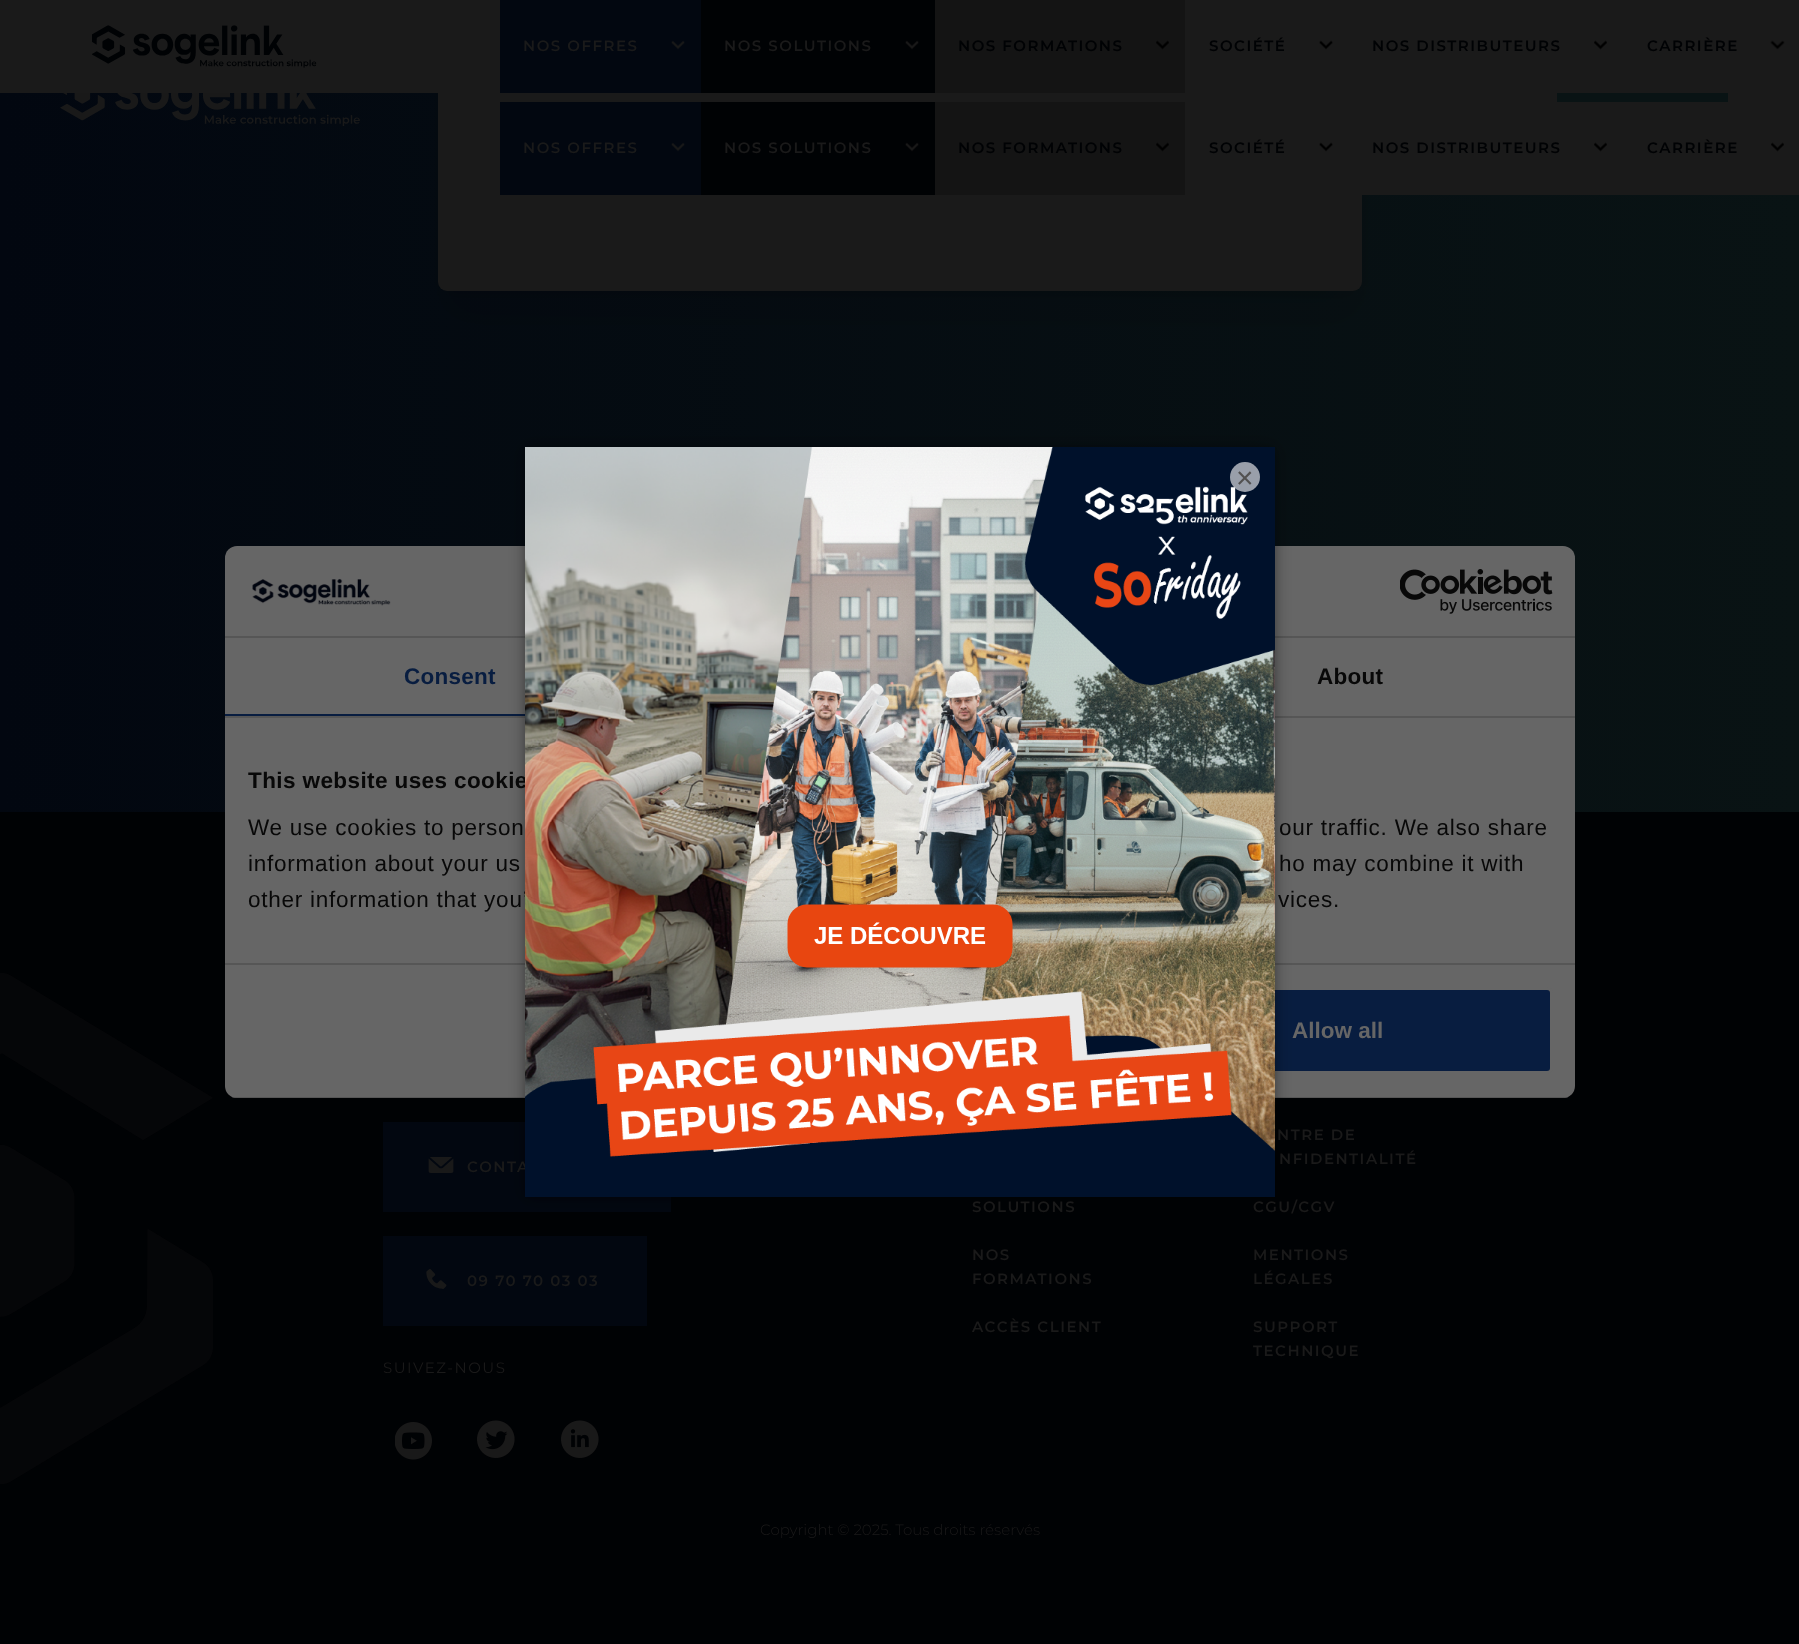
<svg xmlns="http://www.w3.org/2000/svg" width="1799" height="1644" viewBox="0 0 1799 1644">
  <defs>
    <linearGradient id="g1" gradientUnits="userSpaceOnUse" x1="0" y1="-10" x2="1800" y2="-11"><stop offset="0" stop-color="#020710"/><stop offset="1" stop-color="#091314"/></linearGradient>
    <filter id="blur1" x="-50%" y="-200%" width="200%" height="500%"><feGaussianBlur stdDeviation="7.5"/></filter>
    <filter id="blur2" x="-50%" y="-200%" width="200%" height="500%"><feGaussianBlur stdDeviation="19"/></filter>
    <clipPath id="clip1"><rect x="225" y="546" width="1350" height="552" rx="12"/></clipPath>
    <filter id="blur3" x="-50%" y="-200%" width="200%" height="500%"><feGaussianBlur stdDeviation="4"/></filter>
    <filter id="blur4" x="-50%" y="-200%" width="200%" height="500%"><feGaussianBlur stdDeviation="9"/></filter>
  </defs>
  <rect width="100%" height="100%" fill="#ffffff"/>
  <rect x="0" y="93" width="1799" height="719" fill="url(#g1)"/>
  <rect x="447" y="-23" width="906" height="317" fill="#000000" fill-opacity="0.1" filter="url(#blur1)"/>
  <rect x="446" y="-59" width="909" height="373" rx="1.5" fill="#000000" fill-opacity="0.1" filter="url(#blur2)"/>
  <rect x="438" y="-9" width="924" height="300" rx="9" fill="#1a1a1a"/>
  <rect x="0" y="0" width="1799" height="93" fill="#1a1a1a"/>
  <image x="92" y="25" width="225" height="43" href="img1.png"/>
  <rect x="500" y="0" width="201" height="93" fill="#020710"/>
  <text x="523" y="51" font-family="Montserrat" font-size="15" font-weight="600" letter-spacing="1.5" fill="#1a1a1a">NOS OFFRES</text>
  <image x="671" y="40" width="14" height="10" href="img2.png"/>
  <rect x="701" y="0" width="234" height="93" fill="#000204"/>
  <text x="724" y="51" font-family="Montserrat" font-size="15" font-weight="600" letter-spacing="1.5" fill="#1a1a1a">NOS SOLUTIONS</text>
  <image x="905" y="40" width="14" height="10" href="img3.png"/>
  <rect x="935" y="0" width="250" height="93" fill="#141414"/>
  <text x="958" y="51" font-family="Montserrat" font-size="15" font-weight="600" letter-spacing="1.5" fill="#000204">NOS FORMATIONS</text>
  <image x="1156" y="40" width="13" height="10" href="img4.png"/>
  <text x="1209" y="51" font-family="Montserrat" font-size="15" font-weight="600" letter-spacing="1.5" fill="#000204">SOCIÉTÉ</text>
  <image x="1319" y="40" width="14" height="10" href="img5.png"/>
  <text x="1372" y="51" font-family="Montserrat" font-size="15" font-weight="600" letter-spacing="1.5" fill="#000204">NOS DISTRIBUTEURS</text>
  <image x="1594" y="40" width="13" height="10" href="img6.png"/>
  <text x="1647" y="51" font-family="Montserrat" font-size="15" font-weight="600" letter-spacing="1.5" fill="#000204">CARRIÈRE</text>
  <image x="1770" y="40" width="15" height="10" href="img7.png"/>
  <image x="60" y="93" width="300" height="33" href="img8.png"/>
  <rect x="1362" y="93" width="437" height="102" fill="#1a1a1a"/>
  <rect x="1557" y="93" width="171" height="9" fill="#091314"/>
  <rect x="500" y="102" width="201" height="93" fill="#020710"/>
  <text x="523" y="153" font-family="Montserrat" font-size="15" font-weight="600" letter-spacing="1.5" fill="#1a1a1a">NOS OFFRES</text>
  <image x="671" y="142" width="14" height="10" href="img2.png"/>
  <rect x="701" y="102" width="234" height="93" fill="#000204"/>
  <text x="724" y="153" font-family="Montserrat" font-size="15" font-weight="600" letter-spacing="1.5" fill="#1a1a1a">NOS SOLUTIONS</text>
  <image x="905" y="142" width="14" height="10" href="img3.png"/>
  <rect x="935" y="102" width="250" height="93" fill="#141414"/>
  <text x="958" y="153" font-family="Montserrat" font-size="15" font-weight="600" letter-spacing="1.5" fill="#000204">NOS FORMATIONS</text>
  <image x="1156" y="142" width="13" height="10" href="img4.png"/>
  <text x="1209" y="153" font-family="Montserrat" font-size="15" font-weight="600" letter-spacing="1.5" fill="#000204">SOCIÉTÉ</text>
  <image x="1319" y="142" width="14" height="10" href="img5.png"/>
  <text x="1372" y="153" font-family="Montserrat" font-size="15" font-weight="600" letter-spacing="1.5" fill="#000204">NOS DISTRIBUTEURS</text>
  <image x="1594" y="142" width="13" height="10" href="img6.png"/>
  <text x="1647" y="153" font-family="Montserrat" font-size="15" font-weight="600" letter-spacing="1.5" fill="#000204">CARRIÈRE</text>
  <image x="1771" y="142" width="13" height="10" href="img6.png"/>
  <rect x="0" y="812" width="1799" height="832" fill="#000204"/>
  <rect x="225" y="546" width="1350" height="552" rx="12" fill="#666666"/>
  <rect x="225" y="636" width="1350" height="2" fill="#565656"/>
  <rect x="225" y="716" width="1350" height="2" fill="#565656"/>
  <rect x="225" y="714" width="300" height="2" fill="#081d40"/>
  <rect x="225" y="963" width="1350" height="2" fill="#565656"/>
  <g clip-path="url(#clip1)">
    <rect x="225" y="1097" width="1350" height="1" fill="#565656"/>
  </g>
  <rect x="1123.5" y="988.5" width="428" height="84" rx="4.5" fill="#081d40" stroke="#666666" stroke-width="3"/>
  <rect x="383" y="1122" width="288" height="90" fill="#020710"/>
  <rect x="525" y="449" width="750" height="750" fill="#000000" fill-opacity="0.2" filter="url(#blur3)"/>
  <rect x="525" y="447" width="750" height="750" fill="#000000" fill-opacity="0.3" filter="url(#blur4)"/>
  <text x="248" y="788" font-family="Liberation Sans" font-size="22.5" font-weight="bold" letter-spacing="0.4" fill="#080808">This website uses cookie</text>
  <text x="248" y="907" font-family="Liberation Sans" font-size="22.5" letter-spacing="0.75" fill="#080808">other information that you’</text>
  <text x="467" y="1172" font-family="Montserrat" font-size="15" font-weight="600" letter-spacing="1.5" fill="#1a1a1a">CONTA</text>
  <image x="525" y="447" width="750" height="750" href="img9.png"/>
  <circle cx="1245" cy="477" r="15" fill="#ffffff" fill-opacity="0.6"/>
  <text x="1236" y="488" font-family="Liberation Sans" font-size="30" fill="#525151">×</text>
  <image x="252" y="578" width="139" height="28" href="img10.png"/>
  <image x="1400" y="569" width="153" height="45" href="img11.png"/>
  <text x="404" y="684" font-family="Liberation Sans" font-size="22.5" font-weight="bold" letter-spacing="0.25" fill="#081d40">Consent</text>
  <text x="1317" y="684" font-family="Liberation Sans" font-size="22.5" font-weight="bold" letter-spacing="0.25" fill="#080808">About</text>
  <text x="248" y="835" font-family="Liberation Sans" font-size="22.5" letter-spacing="0.75" fill="#080808">We use cookies to person</text>
  <text x="1279" y="835" font-family="Liberation Sans" font-size="22.5" letter-spacing="0.75" fill="#080808">our traffic. We also share</text>
  <text x="248" y="871" font-family="Liberation Sans" font-size="22.5" letter-spacing="0.75" fill="#080808">information about your us</text>
  <text x="1279" y="871" font-family="Liberation Sans" font-size="22.5" letter-spacing="0.75" fill="#080808">ho may combine it with</text>
  <text x="1278" y="907" font-family="Liberation Sans" font-size="22.5" letter-spacing="0.75" fill="#080808">vices.</text>
  <text x="1292" y="1038" font-family="Liberation Sans" font-size="22.5" font-weight="bold" fill="#666666">Allow all</text>
  <image x="0" y="973" width="213" height="511" href="img12.png"/>
  <image x="428" y="1157" width="26" height="16" href="img13.png"/>
  <rect x="383" y="1236" width="264" height="90" fill="#020710"/>
  <image x="426" y="1269" width="21" height="20" href="img14.png"/>
  <text x="467" y="1286" font-family="Montserrat" font-size="15" font-weight="600" letter-spacing="1.5" fill="#1a1a1a">09 70 70 03 03</text>
  <text x="383" y="1373" font-family="Montserrat" font-size="15" letter-spacing="1.5" fill="#1a1a1a">SUIVEZ-NOUS</text>
  <image x="395" y="1422" width="37" height="38" href="img15.png"/>
  <image x="477" y="1420" width="38" height="38" href="img16.png"/>
  <image x="561" y="1420" width="38" height="38" href="img17.png"/>
  <text x="972" y="1212" font-family="Montserrat" font-size="15" font-weight="600" letter-spacing="1.5" fill="#1a1a1a">SOLUTIONS</text>
  <text x="972" y="1260" font-family="Montserrat" font-size="15" font-weight="600" letter-spacing="1.5" fill="#1a1a1a">NOS</text>
  <text x="972" y="1284" font-family="Montserrat" font-size="15" font-weight="600" letter-spacing="1.5" fill="#1a1a1a">FORMATIONS</text>
  <text x="972" y="1332" font-family="Montserrat" font-size="15" font-weight="600" letter-spacing="1.5" fill="#1a1a1a">ACCÈS CLIENT</text>
  <text x="1277" y="1140" font-family="Montserrat" font-size="15" font-weight="600" letter-spacing="1.5" fill="#1a1a1a">NTRE DE</text>
  <text x="1279" y="1164" font-family="Montserrat" font-size="15" font-weight="600" letter-spacing="1.5" fill="#1a1a1a">NFIDENTIALITÉ</text>
  <text x="1253" y="1212" font-family="Montserrat" font-size="15" font-weight="600" letter-spacing="1.5" fill="#1a1a1a">CGU/CGV</text>
  <text x="1253" y="1260" font-family="Montserrat" font-size="15" font-weight="600" letter-spacing="1.5" fill="#1a1a1a">MENTIONS</text>
  <text x="1253" y="1284" font-family="Montserrat" font-size="15" font-weight="600" letter-spacing="1.5" fill="#1a1a1a">LÉGALES</text>
  <text x="1253" y="1332" font-family="Montserrat" font-size="15" font-weight="600" letter-spacing="1.5" fill="#1a1a1a">SUPPORT</text>
  <text x="1253" y="1356" font-family="Montserrat" font-size="15" font-weight="600" letter-spacing="1.5" fill="#1a1a1a">TECHNIQUE</text>
  <text x="760" y="1535" font-family="Montserrat" font-size="15" font-weight="300" fill="#1a1a1a">Copyright © 2025. Tous droits réservés</text>
</svg>
